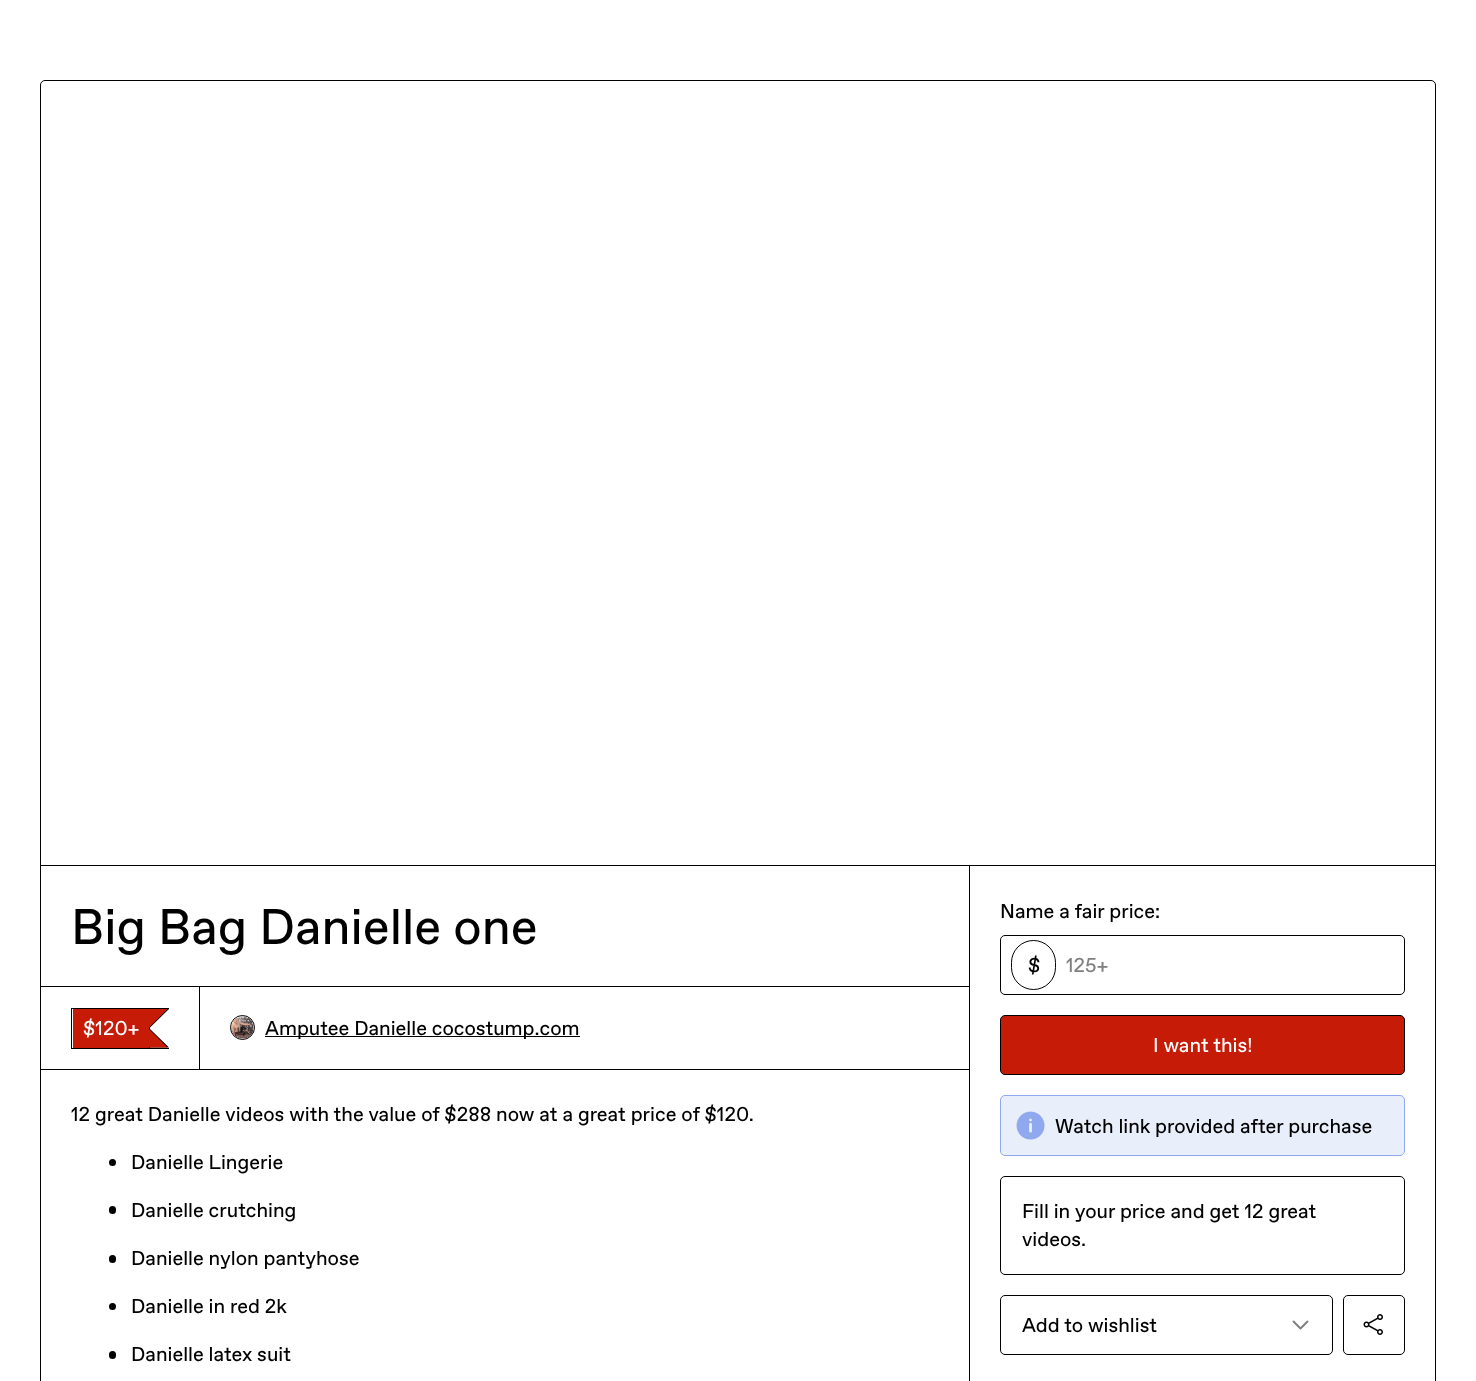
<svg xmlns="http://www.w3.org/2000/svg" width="1476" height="1381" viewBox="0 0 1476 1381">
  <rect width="100%" height="100%" fill="#ffffff"/>
  <rect x="40.5" y="80.5" width="1395" height="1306" rx="4.5" fill="none" stroke="#000000"/>
  <rect x="41" y="865" width="1394" height="1" fill="#000000"/>
  <rect x="969" y="866" width="1" height="515" fill="#000000"/>
  <text x="71" y="944" font-family="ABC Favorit" font-size="50" fill="#000000">Big Bag Danielle one</text>
  <rect x="200" y="986" width="769" height="1" fill="#000000"/>
  <rect x="40.5" y="986.5" width="159" height="83" fill="none" stroke="#000000"/>
  <rect x="71" y="1008" width="98" height="1" fill="#000000"/>
  <rect x="71" y="1048" width="98" height="1" fill="#000000"/>
  <rect x="71" y="1008" width="1" height="41" fill="#000000"/>
  <rect x="73" y="1009" width="76" height="39" fill="#c51b07"/>
  <path d="M149 1009H169L150 1027.5ZM169 1047.5H149L150 1029Z" fill="#000000"/>
  <rect x="149" y="1026" width="1" height="22" fill="#000000"/>
  <path d="M147.5 1009H167.5L149 1027.5ZM167.5 1047.5H147.5L149 1029Z" fill="#c51b07"/>
  <text x="83" y="1035" font-family="ABC Favorit" font-size="20" fill="#ffffff">$120+</text>
  <circle cx="242.5" cy="1027.5" r="12" fill="none" stroke="#000000"/>
  <image x="231" y="1016" width="23" height="23" href="img1.png"/>
  <rect x="265" y="1036" width="315" height="1" fill="#000000"/>
  <text x="265" y="1035" font-family="ABC Favorit" font-size="20" fill="#000000">Amputee Danielle cocostump.com</text>
  <rect x="200" y="1069" width="769" height="1" fill="#000000"/>
  <text x="71" y="1121" font-family="ABC Favorit" font-size="20" fill="#000000">12 great Danielle videos with the value of $288 now at a great price of $120.</text>
  <circle cx="112.5" cy="1162.5" r="3.5" fill="#000000"/>
  <text x="131" y="1169" font-family="ABC Favorit" font-size="20" fill="#000000">Danielle Lingerie</text>
  <rect x="109" y="1206" width="7" height="8" rx="3.5" fill="#000000"/>
  <text x="131" y="1217" font-family="ABC Favorit" font-size="20" fill="#000000">Danielle crutching</text>
  <rect x="109" y="1255" width="7" height="8" rx="3.5" fill="#000000"/>
  <text x="131" y="1265" font-family="ABC Favorit" font-size="20" fill="#000000">Danielle nylon pantyhose</text>
  <circle cx="112.5" cy="1306.5" r="3.5" fill="#000000"/>
  <text x="131" y="1313" font-family="ABC Favorit" font-size="20" fill="#000000">Danielle in red 2k</text>
  <rect x="109" y="1351" width="7" height="8" rx="3.5" fill="#000000"/>
  <text x="131" y="1361" font-family="ABC Favorit" font-size="20" fill="#000000">Danielle latex suit</text>
  <text x="1000" y="918" font-family="ABC Favorit" font-size="20" fill="#000000">Name a fair price:</text>
  <rect x="1000.5" y="935.5" width="404" height="59" rx="4.5" fill="none" stroke="#000000"/>
  <rect x="1011.5" y="940.5" width="44" height="49" rx="22" fill="none" stroke="#000000"/>
  <text x="1028" y="972" font-family="ABC Favorit" font-size="20" fill="#000000">$</text>
  <text x="1066" y="972" font-family="ABC Favorit" font-size="20" fill="#808080">125+</text>
  <rect x="1000.5" y="1015.5" width="404" height="59" rx="4.5" fill="#c51b07" stroke="#000000"/>
  <text x="1153" y="1052" font-family="ABC Favorit" font-size="20" fill="#ffffff">I want this!</text>
  <rect x="1000.5" y="1095.5" width="404" height="60" rx="4.5" fill="#e9eefb" stroke="#90a8ed"/>
  <image x="1016" y="1111" width="29" height="29" href="img2.png"/>
  <text x="1055" y="1133" font-family="ABC Favorit" font-size="20" fill="#000000">Watch link provided after purchase</text>
  <rect x="1000.5" y="1176.5" width="404" height="98" rx="4.5" fill="none" stroke="#000000"/>
  <text x="1022" y="1218" font-family="ABC Favorit" font-size="20" fill="#000000">Fill in your price and get 12 great</text>
  <text x="1022" y="1246" font-family="ABC Favorit" font-size="20" fill="#000000">videos.</text>
  <rect x="1000.5" y="1295.5" width="332" height="59" rx="4.5" fill="none" stroke="#000000"/>
  <text x="1022" y="1332" font-family="ABC Favorit" font-size="20" fill="#000000">Add to wishlist</text>
  <path d="M1307.5 1321.5L1300.5 1328.5L1293.5 1321.5" fill="none" stroke="#808080" stroke-width="2" stroke-linecap="round" stroke-linejoin="round"/>
  <rect x="1343.5" y="1295.5" width="61" height="59" rx="4.5" fill="none" stroke="#000000"/>
  <image x="1363" y="1314" width="20" height="21" href="img3.png"/>
</svg>
